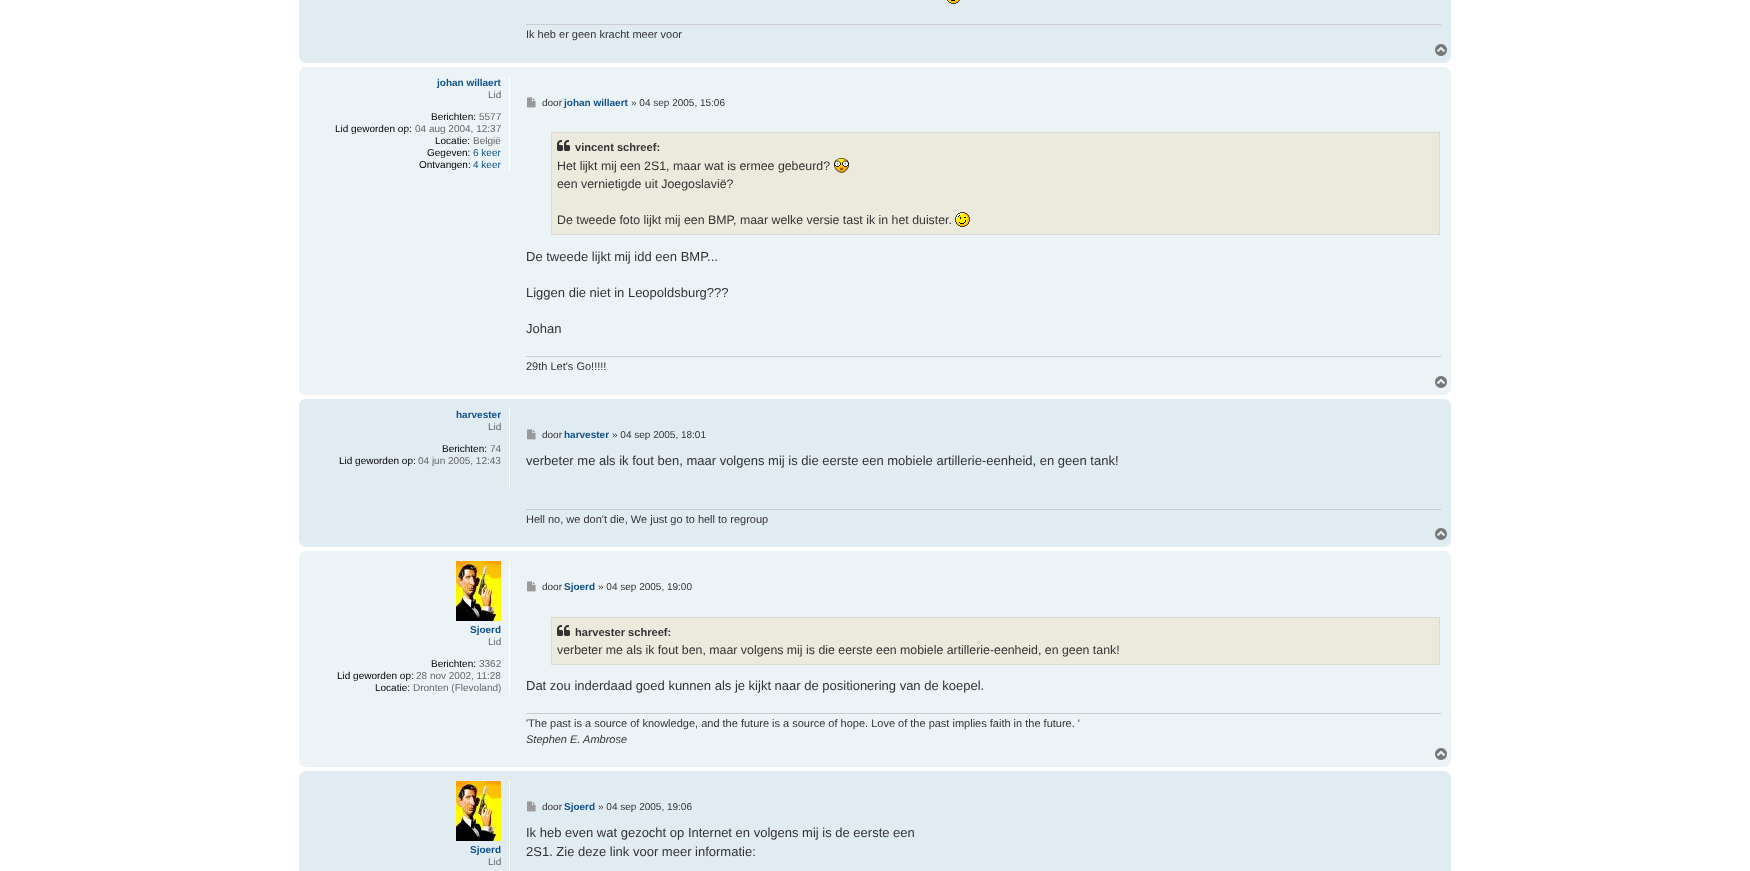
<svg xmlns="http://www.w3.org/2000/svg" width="1750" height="871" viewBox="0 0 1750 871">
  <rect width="100%" height="100%" fill="#ffffff"/>
  <rect x="299" y="-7" width="1152" height="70" rx="7" fill="#e1ebf2"/>
  <image x="947" y="0" width="13" height="4" href="img1.png"/>
  <rect x="526" y="24" width="915" height="1" fill="#cccccc"/>
  <text x="526" y="38" font-family="Liberation Sans" font-size="11" fill="#333333">Ik heb er geen kracht meer voor</text>
  <image x="1435" y="44" width="12" height="12" href="img2.png"/>
  <rect x="299" y="67" width="1152" height="328" rx="7" fill="#ecf3f7"/>
  <rect x="509" y="77" width="1" height="94" fill="#ffffff"/>
  <text x="437" y="86" font-family="Liberation Sans" font-size="10" font-weight="bold" fill="#105289">johan willaert</text>
  <text x="488" y="98" font-family="Liberation Sans" font-size="10" fill="#666666">Lid</text>
  <text x="431" y="120" font-family="Liberation Sans" font-size="10" fill="#000000">Berichten:</text>
  <text x="479" y="120" font-family="Liberation Sans" font-size="10" fill="#666666">5577</text>
  <text x="335" y="132" font-family="Liberation Sans" font-size="10" fill="#000000">Lid geworden op:</text>
  <text x="415" y="132" font-family="Liberation Sans" font-size="10" fill="#666666">04 aug 2004, 12:37</text>
  <text x="435" y="144" font-family="Liberation Sans" font-size="10" fill="#000000">Locatie:</text>
  <text x="473" y="144" font-family="Liberation Sans" font-size="10" fill="#666666">België</text>
  <text x="427" y="156" font-family="Liberation Sans" font-size="10" fill="#000000">Gegeven:</text>
  <text x="473" y="156" font-family="Liberation Sans" font-size="10" fill="#105289">6 keer</text>
  <text x="419" y="168" font-family="Liberation Sans" font-size="10" fill="#000000">Ontvangen:</text>
  <text x="473" y="168" font-family="Liberation Sans" font-size="10" fill="#105289">4 keer</text>
  <image x="527" y="97" width="9" height="11" href="img3.png"/>
  <text x="542" y="106" font-family="Liberation Sans" font-size="10" fill="#333333">door</text>
  <text x="564" y="106" font-family="Liberation Sans" font-size="10" font-weight="bold" fill="#105289">johan willaert</text>
  <text x="631" y="106" font-family="Liberation Sans" font-size="10" fill="#333333">» 04 sep 2005, 15:06</text>
  <rect x="551.5" y="132.5" width="888" height="102" fill="#ebeadd" stroke="#dbdbce"/>
  <image x="557" y="140" width="13" height="11" href="img4.png"/>
  <text x="575" y="151" font-family="Liberation Sans" font-size="11.1" font-weight="bold" fill="#333333">vincent schreef:</text>
  <text x="557" y="170" font-family="Liberation Sans" font-size="12.35" fill="#333333">Het lijkt mij een 2S1, maar wat is ermee gebeurd?</text>
  <image x="834" y="158" width="15" height="15" href="img5.png"/>
  <text x="557" y="188" font-family="Liberation Sans" font-size="12.35" fill="#333333">een vernietigde uit Joegoslavië?</text>
  <text x="557" y="224" font-family="Liberation Sans" font-size="12.35" fill="#333333">De tweede foto lijkt mij een BMP, maar welke versie tast ik in het duister.</text>
  <image x="955" y="212" width="15" height="15" href="img6.png"/>
  <text x="526" y="261" font-family="Liberation Sans" font-size="13" fill="#333333">De tweede lijkt mij idd een BMP...</text>
  <text x="526" y="297" font-family="Liberation Sans" font-size="13" fill="#333333">Liggen die niet in Leopoldsburg???</text>
  <text x="526" y="333" font-family="Liberation Sans" font-size="13" fill="#333333">Johan</text>
  <rect x="526" y="356" width="915" height="1" fill="#cccccc"/>
  <text x="526" y="370" font-family="Liberation Sans" font-size="11" fill="#333333">29th Let's Go!!!!!</text>
  <image x="1435" y="376" width="12" height="12" href="img7.png"/>
  <rect x="299" y="399" width="1152" height="148" rx="7" fill="#e1ebf2"/>
  <rect x="509" y="409" width="1" height="80" fill="#ffffff"/>
  <text x="456" y="418" font-family="Liberation Sans" font-size="10" font-weight="bold" fill="#105289">harvester</text>
  <text x="488" y="430" font-family="Liberation Sans" font-size="10" fill="#666666">Lid</text>
  <text x="442" y="452" font-family="Liberation Sans" font-size="10" fill="#000000">Berichten:</text>
  <text x="490" y="452" font-family="Liberation Sans" font-size="10" fill="#666666">74</text>
  <text x="339" y="464" font-family="Liberation Sans" font-size="10" fill="#000000">Lid geworden op:</text>
  <text x="418" y="464" font-family="Liberation Sans" font-size="10" fill="#666666">04 jun 2005, 12:43</text>
  <image x="527" y="429" width="9" height="11" href="img8.png"/>
  <text x="542" y="438" font-family="Liberation Sans" font-size="10" fill="#333333">door</text>
  <text x="564" y="438" font-family="Liberation Sans" font-size="10" font-weight="bold" fill="#105289">harvester</text>
  <text x="612" y="438" font-family="Liberation Sans" font-size="10" fill="#333333">» 04 sep 2005, 18:01</text>
  <text x="526" y="465" font-family="Liberation Sans" font-size="13" fill="#333333">verbeter me als ik fout ben, maar volgens mij is die eerste een mobiele artillerie-eenheid, en geen tank!</text>
  <rect x="526" y="509" width="915" height="1" fill="#cccccc"/>
  <text x="526" y="523" font-family="Liberation Sans" font-size="11" fill="#333333">Hell no, we don't die, We just go to hell to regroup</text>
  <image x="1435" y="528" width="12" height="12" href="img2.png"/>
  <rect x="299" y="551" width="1152" height="216" rx="7" fill="#ecf3f7"/>
  <rect x="509" y="561" width="1" height="133" fill="#ffffff"/>
  <image x="456" y="561" width="45" height="60" href="img9.png"/>
  <text x="470" y="633" font-family="Liberation Sans" font-size="10" font-weight="bold" fill="#105289">Sjoerd</text>
  <text x="488" y="645" font-family="Liberation Sans" font-size="10" fill="#666666">Lid</text>
  <text x="431" y="667" font-family="Liberation Sans" font-size="10" fill="#000000">Berichten:</text>
  <text x="479" y="667" font-family="Liberation Sans" font-size="10" fill="#666666">3362</text>
  <text x="337" y="679" font-family="Liberation Sans" font-size="10" fill="#000000">Lid geworden op:</text>
  <text x="416" y="679" font-family="Liberation Sans" font-size="10" fill="#666666">28 nov 2002, 11:28</text>
  <text x="375" y="691" font-family="Liberation Sans" font-size="10" fill="#000000">Locatie:</text>
  <text x="413" y="691" font-family="Liberation Sans" font-size="10" fill="#666666">Dronten (Flevoland)</text>
  <image x="527" y="581" width="9" height="11" href="img3.png"/>
  <text x="542" y="590" font-family="Liberation Sans" font-size="10" fill="#333333">door</text>
  <text x="564" y="590" font-family="Liberation Sans" font-size="10" font-weight="bold" fill="#105289">Sjoerd</text>
  <text x="598" y="590" font-family="Liberation Sans" font-size="10" fill="#333333">» 04 sep 2005, 19:00</text>
  <rect x="551.5" y="617.5" width="888" height="47" fill="#ebeadd" stroke="#dbdbce"/>
  <image x="557" y="625" width="13" height="11" href="img4.png"/>
  <text x="575" y="636" font-family="Liberation Sans" font-size="11.1" font-weight="bold" fill="#333333">harvester schreef:</text>
  <text x="557" y="654" font-family="Liberation Sans" font-size="12.35" fill="#333333">verbeter me als ik fout ben, maar volgens mij is die eerste een mobiele artillerie-eenheid, en geen tank!</text>
  <text x="526" y="690" font-family="Liberation Sans" font-size="13" fill="#333333">Dat zou inderdaad goed kunnen als je kijkt naar de positionering van de koepel.</text>
  <rect x="526" y="713" width="915" height="1" fill="#cccccc"/>
  <text x="526" y="727" font-family="Liberation Sans" font-size="11" fill="#333333">'The past is a source of knowledge, and the future is a source of hope. Love of the past implies faith in the future. '</text>
  <text x="526" y="743" font-family="Liberation Sans" font-size="11" font-style="italic" fill="#333333">Stephen E. Ambrose</text>
  <image x="1435" y="748" width="12" height="12" href="img7.png"/>
  <rect x="299" y="771" width="1152" height="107" rx="7" fill="#e1ebf2"/>
  <rect x="509" y="781" width="1" height="90" fill="#ffffff"/>
  <image x="456" y="781" width="45" height="60" href="img9.png"/>
  <text x="470" y="853" font-family="Liberation Sans" font-size="10" font-weight="bold" fill="#105289">Sjoerd</text>
  <text x="488" y="865" font-family="Liberation Sans" font-size="10" fill="#666666">Lid</text>
  <image x="527" y="801" width="9" height="11" href="img8.png"/>
  <text x="542" y="810" font-family="Liberation Sans" font-size="10" fill="#333333">door</text>
  <text x="564" y="810" font-family="Liberation Sans" font-size="10" font-weight="bold" fill="#105289">Sjoerd</text>
  <text x="598" y="810" font-family="Liberation Sans" font-size="10" fill="#333333">» 04 sep 2005, 19:06</text>
  <text x="526" y="837" font-family="Liberation Sans" font-size="13" fill="#333333">Ik heb even wat gezocht op Internet en volgens mij is de eerste een</text>
  <text x="526" y="856" font-family="Liberation Sans" font-size="13" fill="#333333">2S1. Zie deze link voor meer informatie:</text>
</svg>
